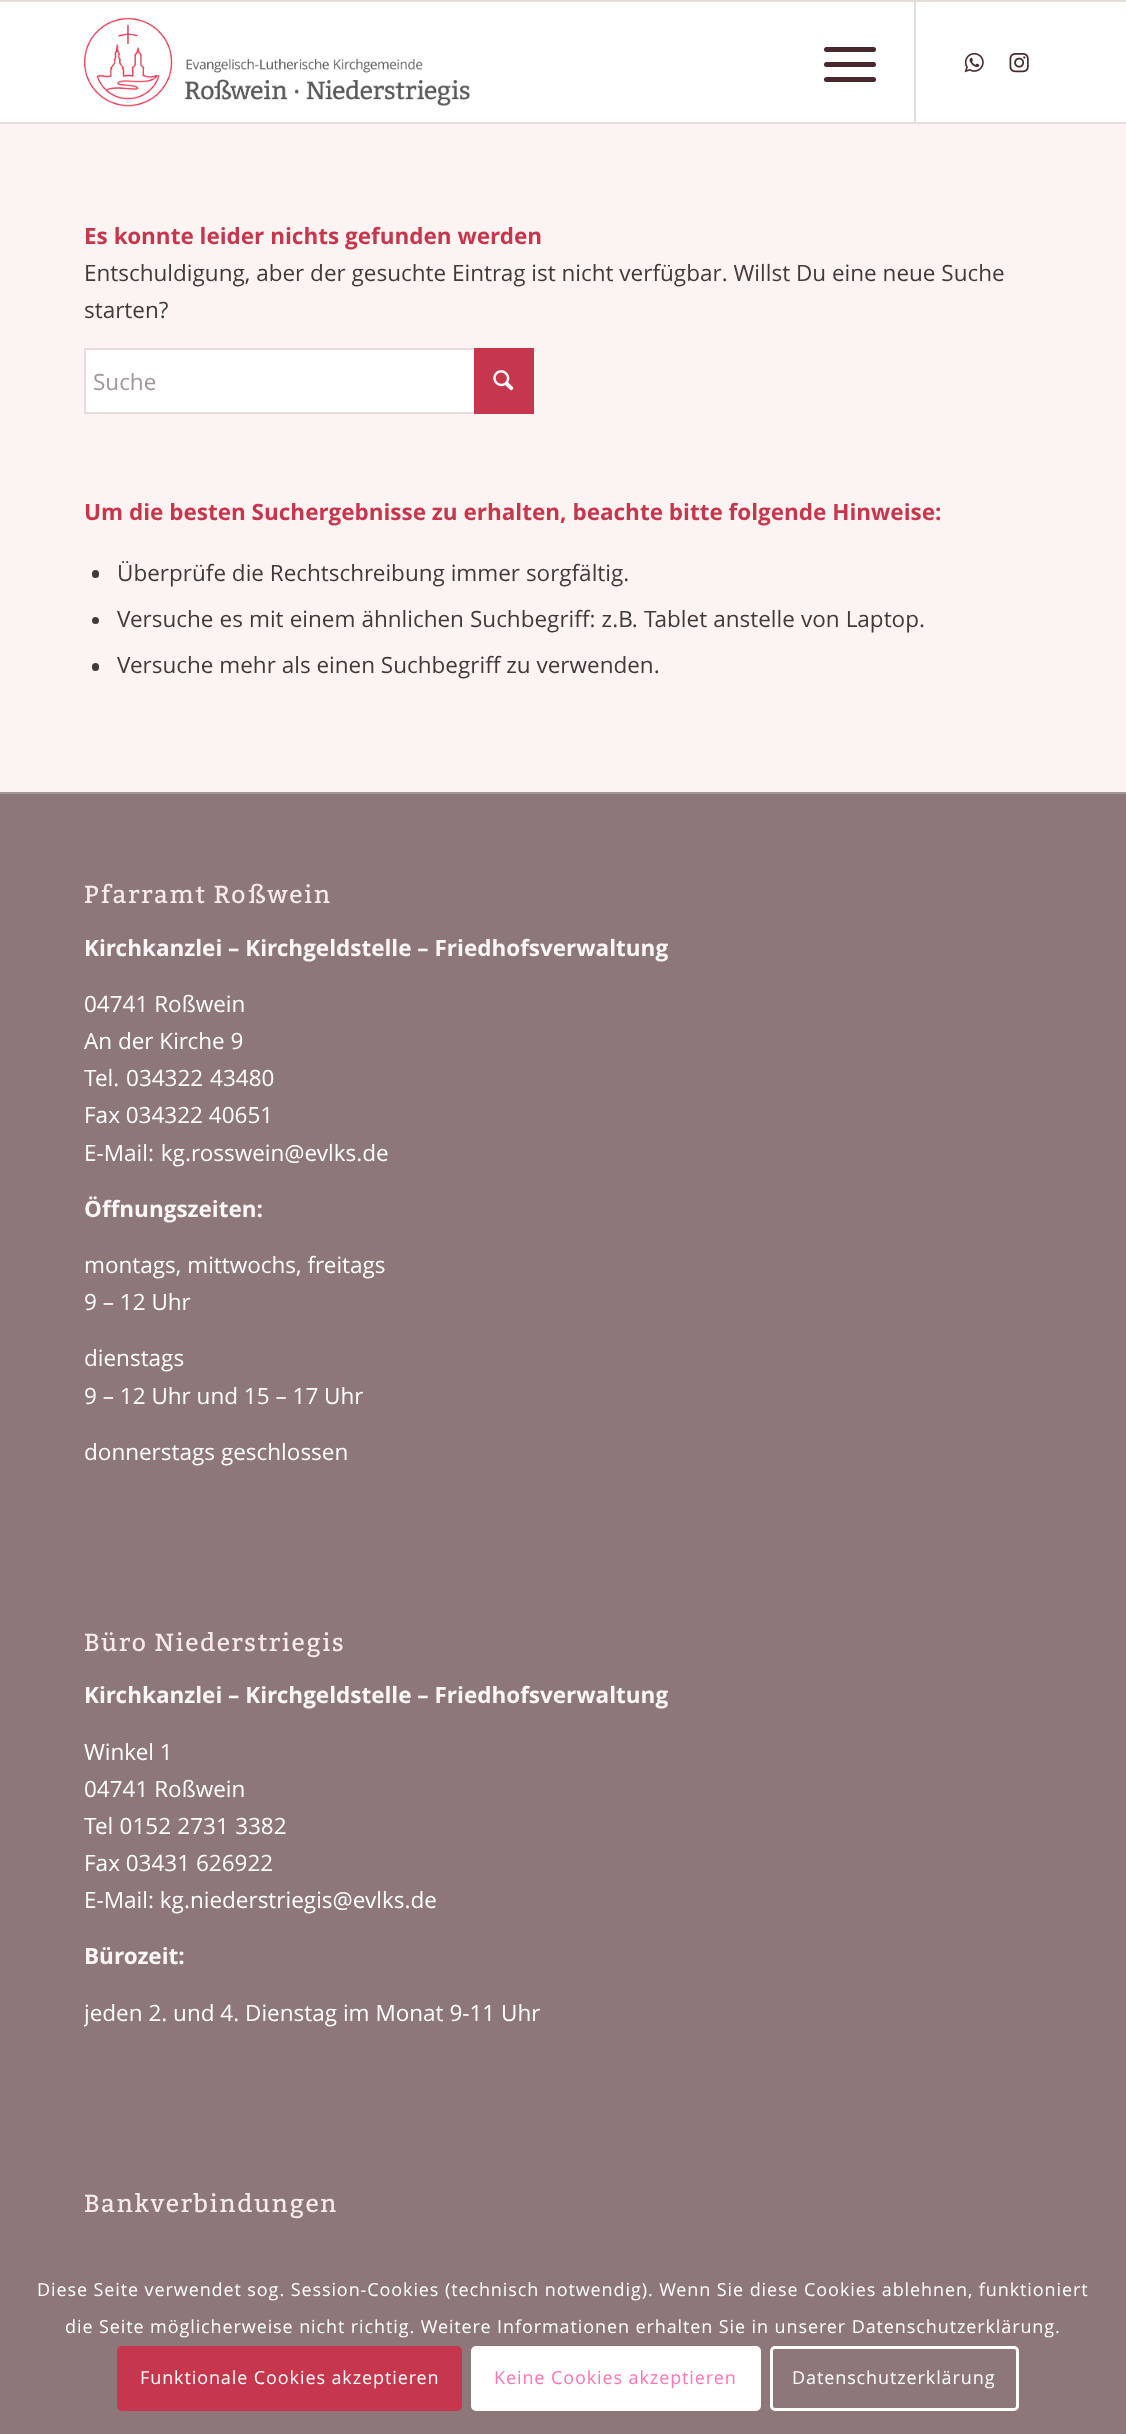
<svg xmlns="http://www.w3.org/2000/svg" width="1126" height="2434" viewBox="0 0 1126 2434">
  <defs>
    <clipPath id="clip1"><rect x="84" y="1610" width="959" height="441"/></clipPath>
  </defs>
  <rect width="100%" height="100%" fill="#fbf4f2"/>
  <rect x="0" y="0" width="1126" height="2" fill="#e6ddda"/>
  <rect x="0" y="122" width="1126" height="2" fill="#e6ddda"/>
  <rect x="0" y="2" width="1126" height="120" fill="#ffffff"/>
  <image x="84" y="17" width="386" height="90" href="img1.png"/>
  <rect x="914" y="2" width="2" height="120" fill="#e6ddda"/>
  <rect x="824" y="62" width="52" height="5" rx="2.5" fill="#47292d"/>
  <rect x="824" y="47" width="52" height="5" rx="2.5" fill="#47292d"/>
  <rect x="824" y="77" width="52" height="5" rx="2.5" fill="#47292d"/>
  <image x="964" y="52" width="20" height="21" href="img2.png"/>
  <image x="1009" y="53" width="20" height="20" href="img3.png"/>
  <text x="84" y="244" font-family="Open Sans" font-size="22.5" font-weight="bold" fill="#c6374d">Es konnte leider nichts gefunden werden</text>
  <text x="84" y="281" font-family="Open Sans" font-size="22.5" fill="#433939">Entschuldigung, aber der gesuchte Eintrag ist nicht verfügbar. Willst Du eine neue Suche</text>
  <text x="84" y="318" font-family="Open Sans" font-size="22.5" fill="#433939">starten?</text>
  <rect x="86" y="350" width="388" height="62" fill="#ffffff"/>
  <rect x="85" y="349" width="448" height="64" fill="none" stroke="#e6ddda" stroke-width="2"/>
  <rect x="474" y="348" width="60" height="66" fill="#c6374d"/>
  <text x="93" y="390" font-family="Open Sans" font-size="22.5" fill="#a39496">Suche</text>
  <image x="493" y="370" width="21" height="21" href="img4.png"/>
  <text x="84" y="520" font-family="Open Sans" font-size="22.5" font-weight="bold" fill="#c6374d">Um die besten Suchergebnisse zu erhalten, beachte bitte folgende Hinweise:</text>
  <rect x="92" y="570" width="7" height="8" rx="3.5" fill="#433939"/>
  <text x="117" y="581" font-family="Open Sans" font-size="22.5" fill="#433939">Überprüfe die Rechtschreibung immer sorgfältig.</text>
  <circle cx="95.5" cy="620.5" r="3.5" fill="#433939"/>
  <text x="117" y="627" word-spacing="0.25" font-family="Open Sans" font-size="22.5" fill="#433939">Versuche es mit einem ähnlichen Suchbegriff: z.B. Tablet anstelle von Laptop.</text>
  <rect x="92" y="663" width="7" height="8" rx="3.5" fill="#433939"/>
  <text x="117" y="673" font-family="Open Sans" font-size="22.5" fill="#433939">Versuche mehr als einen Suchbegriff zu verwenden.</text>
  <rect x="0" y="794" width="1126" height="1640" fill="#8d7779"/>
  <rect x="0" y="792" width="1126" height="2" fill="#a69496"/>
  <text x="84" y="903" font-family="Bitter" font-size="24.75" letter-spacing="1.5" fill="#f8eceb">Pfarramt Roßwein</text>
  <text x="84" y="956" font-family="Open Sans" font-size="22.5" font-weight="bold" fill="#fcf7f7">Kirchkanzlei – Kirchgeldstelle – Friedhofsverwaltung</text>
  <text x="84" y="1012" font-family="Open Sans" font-size="22.5" fill="#ffffff">04741 Roßwein</text>
  <text x="84" y="1049" font-family="Open Sans" font-size="22.5" fill="#ffffff">An der Kirche 9</text>
  <text x="84" y="1086" word-spacing="1" font-family="Open Sans" font-size="22.5" fill="#ffffff">Tel. 034322 43480</text>
  <text x="84" y="1123" font-family="Open Sans" font-size="22.5" fill="#ffffff">Fax 034322 40651</text>
  <text x="84" y="1161" word-spacing="1" font-family="Open Sans" font-size="22.5" fill="#ffffff">E-Mail: kg.rosswein@evlks.de</text>
  <text x="84" y="1217" font-family="Open Sans" font-size="22.5" font-weight="bold" fill="#fcf7f7">Öffnungszeiten:</text>
  <text x="84" y="1273" font-family="Open Sans" font-size="22.5" fill="#ffffff">montags, mittwochs, freitags</text>
  <text x="84" y="1310" font-family="Open Sans" font-size="22.5" fill="#ffffff">9 – 12 Uhr</text>
  <text x="84" y="1366" font-family="Open Sans" font-size="22.5" fill="#ffffff">dienstags</text>
  <text x="84" y="1404" font-family="Open Sans" font-size="22.5" fill="#ffffff">9 – 12 Uhr und 15 – 17 Uhr</text>
  <text x="84" y="1460" font-family="Open Sans" font-size="22.5" fill="#ffffff">donnerstags geschlossen</text>
  <text x="84" y="1651" font-family="Bitter" font-size="24.75" letter-spacing="1.5" fill="#f8eceb">Büro Niederstriegis</text>
  <text x="84" y="1703" font-family="Open Sans" font-size="22.5" font-weight="bold" fill="#fcf7f7">Kirchkanzlei – Kirchgeldstelle – Friedhofsverwaltung</text>
  <text x="84" y="1760" font-family="Open Sans" font-size="22.5" fill="#ffffff">Winkel 1</text>
  <text x="84" y="1797" font-family="Open Sans" font-size="22.5" fill="#ffffff">04741 Roßwein</text>
  <text x="84" y="1834" word-spacing="0.5" font-family="Open Sans" font-size="22.5" fill="#ffffff">Tel 0152 2731 3382</text>
  <text x="84" y="1871" font-family="Open Sans" font-size="22.5" fill="#ffffff">Fax 03431 626922</text>
  <text x="84" y="1908" font-family="Open Sans" font-size="22.5" fill="#ffffff">E-Mail: kg.niederstriegis@evlks.de</text>
  <text x="84" y="1964" font-family="Open Sans" font-size="22.5" font-weight="bold" fill="#fcf7f7">Bürozeit:</text>
  <g clip-path="url(#clip1)">
    <text x="84" y="2021" font-family="Open Sans" font-size="22.5" fill="#ffffff">jeden 2. und 4. Dienstag im Monat 9-11 Uhr</text>
  </g>
  <text x="84" y="2212" font-family="Bitter" font-size="24.75" letter-spacing="1.5" fill="#f8eceb">Bankverbindungen</text>
  <text x="37" y="2296" font-family="Open Sans" font-size="18" letter-spacing="0.9" fill="#ffffff">Diese Seite verwendet sog. Session-Cookies (technisch notwendig). Wenn Sie diese Cookies ablehnen, funktioniert</text>
  <text x="65" y="2333" font-family="Open Sans" font-size="18" letter-spacing="0.9" fill="#ffffff">die Seite möglicherweise nicht richtig. Weitere Informationen erhalten Sie in unserer Datenschutzerklärung.</text>
  <rect x="117" y="2346" width="345" height="65" rx="5" fill="#c6374d"/>
  <text x="140" y="2384" font-family="Open Sans" font-size="18" letter-spacing="0.9" fill="#ffffff">Funktionale Cookies akzeptieren</text>
  <rect x="472.5" y="2347.5" width="287" height="62" rx="3.5" fill="#ffffff" stroke="#ffffff" stroke-width="3"/>
  <text x="494" y="2384" font-family="Open Sans" font-size="18" letter-spacing="0.9" fill="#ff75b5">Keine Cookies akzeptieren</text>
  <rect x="771.5" y="2347.5" width="246" height="62" rx="3.5" fill="none" stroke="#ffffff" stroke-width="3"/>
  <text x="792" y="2384" font-family="Open Sans" font-size="18" letter-spacing="0.9" fill="#ffffff">Datenschutzerklärung</text>
</svg>
